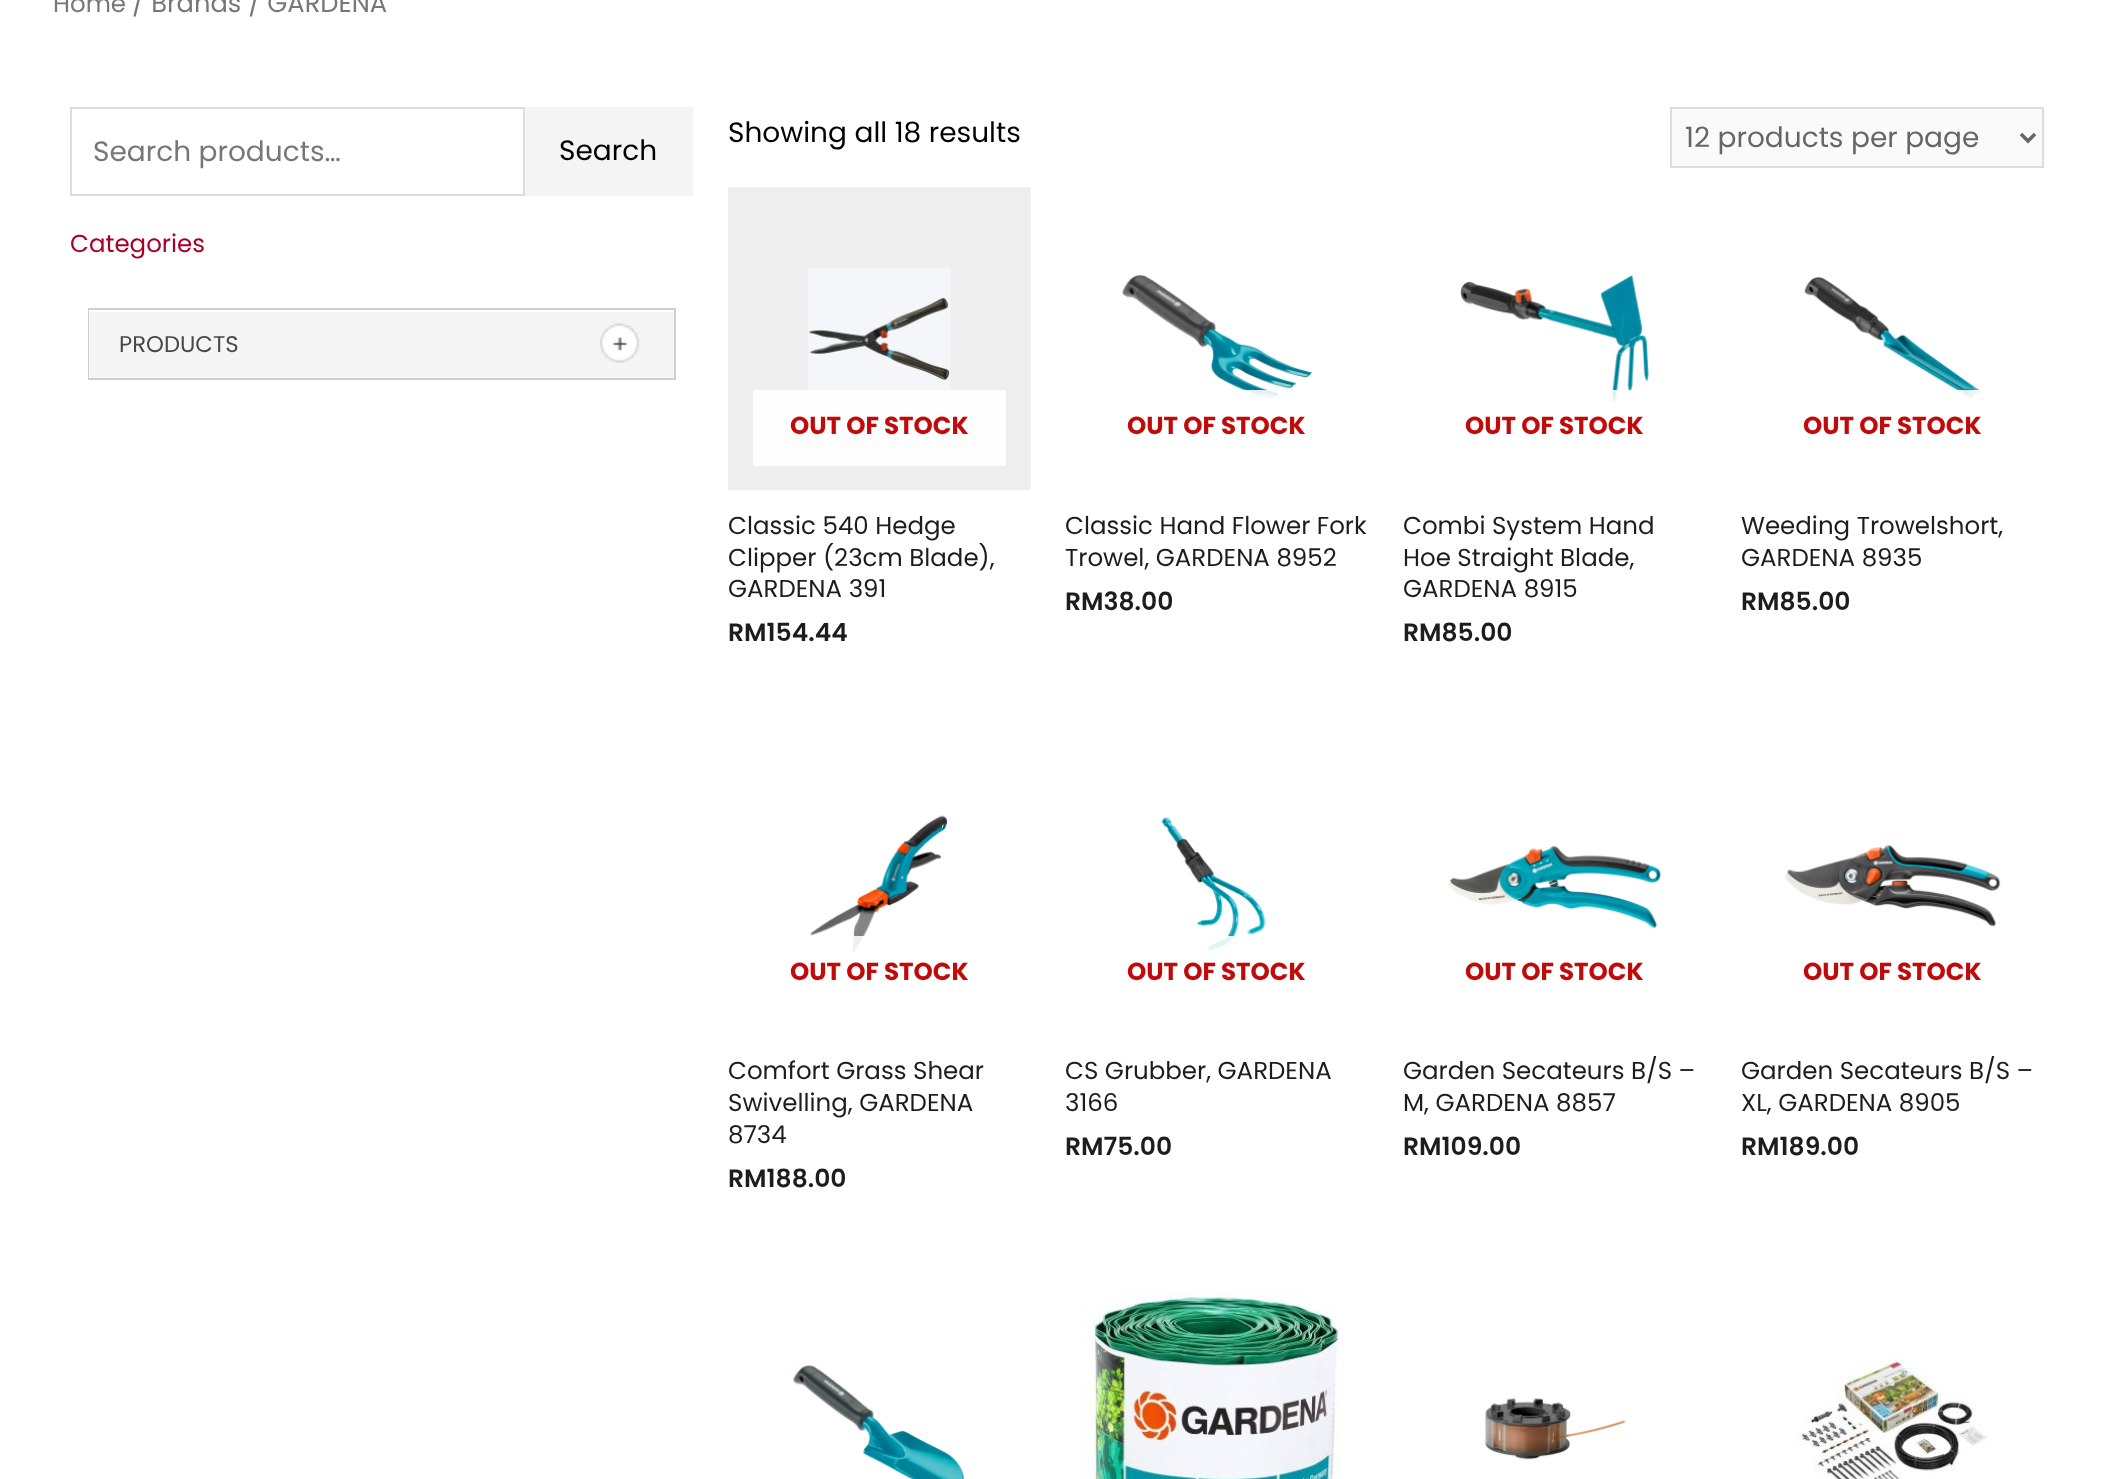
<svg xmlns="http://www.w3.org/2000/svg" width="2113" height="1479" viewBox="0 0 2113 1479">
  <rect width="100%" height="100%" fill="#ffffff"/>
  <text x="53" y="12" font-family="Poppins" font-size="24.5" fill="#777777">Home</text>
  <text x="132" y="12" font-family="Poppins" font-size="25.75" fill="#777777">/ Brands / GARDENA</text>
  <rect x="71" y="108" width="453" height="87" fill="none" stroke="#dddddd" stroke-width="2"/>
  <text x="93" y="161" font-family="Poppins" font-size="28" fill="#777777">Search products…</text>
  <rect x="525" y="107" width="168" height="89" fill="#f4f4f4"/>
  <text x="559" y="160" font-family="Poppins" font-size="28" fill="#000000">Search</text>
  <text x="70" y="252" font-family="Poppins" font-size="24.5" fill="#a80027">Categories</text>
  <rect x="89" y="309" width="586" height="70" fill="none" stroke="#cfcfcf" stroke-width="2"/>
  <rect x="89" y="310" width="1" height="2" fill="#ffffff"/>
  <rect x="89" y="312" width="585" height="66" fill="#f5f5f5"/>
  <text x="119" y="352" font-family="Poppins" font-size="22.75" fill="#484848">PRODUCTS</text>
  <image x="600" y="323" width="40" height="40" href="img1.png"/>
  <text x="728" y="142" font-family="Poppins" font-size="28" fill="#000000">Showing all 18 results</text>
  <rect x="1671" y="108" width="372" height="59" fill="#fafafa" stroke="#dddddd" stroke-width="2"/>
  <path d="M2021 134L2028 141L2035 134" fill="none" stroke="#666666" stroke-width="3.5"/>
  <text x="1685" y="147" font-family="Poppins" font-size="28" fill="#666666">12 products per page</text>
  <image x="728" y="187" width="303" height="303" href="img2.png"/>
  <rect x="753" y="390" width="253" height="76" fill="#ffffff" fill-opacity="0.88"/>
  <text x="790" y="434" font-family="Poppins" font-size="24.5" font-weight="bold" fill="#c10b0b">OUT OF STOCK</text>
  <text x="728" y="534" font-family="Poppins" font-size="24.5" fill="#1d1d1d">Classic 540 Hedge</text>
  <text x="728" y="566" font-family="Poppins" font-size="24.5" fill="#1d1d1d">Clipper (23cm Blade),</text>
  <text x="728" y="597" font-family="Poppins" font-size="24.5" fill="#1d1d1d">GARDENA 391</text>
  <text x="728" y="641" font-family="Poppins" font-size="25" font-weight="600" fill="#1d1d1d">RM154.44</text>
  <image x="1122" y="275" width="190" height="124" href="img3.png"/>
  <rect x="1242" y="390" width="38" height="9" fill="#ffffff" fill-opacity="0.88"/>
  <text x="1127" y="434" font-family="Poppins" font-size="24.5" font-weight="bold" fill="#c10b0b">OUT OF STOCK</text>
  <text x="1065" y="534" font-family="Poppins" font-size="24.5" fill="#1d1d1d">Classic Hand Flower Fork</text>
  <text x="1065" y="566" font-family="Poppins" font-size="24.5" fill="#1d1d1d">Trowel, GARDENA 8952</text>
  <text x="1065" y="610" font-family="Poppins" font-size="25" font-weight="600" fill="#1d1d1d">RM38.00</text>
  <image x="1460" y="275" width="189" height="128" href="img4.png"/>
  <rect x="1611" y="390" width="21" height="13" fill="#ffffff" fill-opacity="0.88"/>
  <text x="1465" y="434" font-family="Poppins" font-size="24.5" font-weight="bold" fill="#c10b0b">OUT OF STOCK</text>
  <text x="1403" y="534" font-family="Poppins" font-size="24.5" fill="#1d1d1d">Combi System Hand</text>
  <text x="1403" y="566" font-family="Poppins" font-size="24.5" fill="#1d1d1d">Hoe Straight Blade,</text>
  <text x="1403" y="597" font-family="Poppins" font-size="24.5" fill="#1d1d1d">GARDENA 8915</text>
  <text x="1403" y="641" font-family="Poppins" font-size="25" font-weight="600" fill="#1d1d1d">RM85.00</text>
  <image x="1804" y="277" width="178" height="122" href="img5.png"/>
  <rect x="1956" y="390" width="26" height="9" fill="#ffffff" fill-opacity="0.88"/>
  <text x="1803" y="434" font-family="Poppins" font-size="24.5" font-weight="bold" fill="#c10b0b">OUT OF STOCK</text>
  <text x="1741" y="534" font-family="Poppins" font-size="24.5" fill="#1d1d1d">Weeding Trowelshort,</text>
  <text x="1741" y="566" font-family="Poppins" font-size="24.5" fill="#1d1d1d">GARDENA 8935</text>
  <text x="1741" y="610" font-family="Poppins" font-size="25" font-weight="600" fill="#1d1d1d">RM85.00</text>
  <image x="810" y="815" width="138" height="137" href="img6.png"/>
  <rect x="852" y="936" width="13" height="16" fill="#ffffff" fill-opacity="0.88"/>
  <text x="790" y="980" font-family="Poppins" font-size="24.5" font-weight="bold" fill="#c10b0b">OUT OF STOCK</text>
  <text x="728" y="1079" font-family="Poppins" font-size="24.5" fill="#1d1d1d">Comfort Grass Shear</text>
  <text x="728" y="1111" font-family="Poppins" font-size="24.5" fill="#1d1d1d">Swivelling, GARDENA</text>
  <text x="728" y="1143" font-family="Poppins" font-size="24.5" fill="#1d1d1d">8734</text>
  <text x="728" y="1187" font-family="Poppins" font-size="25" font-weight="600" fill="#1d1d1d">RM188.00</text>
  <image x="1161" y="817" width="105" height="134" href="img7.png"/>
  <rect x="1206" y="936" width="29" height="15" fill="#ffffff" fill-opacity="0.88"/>
  <text x="1127" y="980" font-family="Poppins" font-size="24.5" font-weight="bold" fill="#c10b0b">OUT OF STOCK</text>
  <text x="1065" y="1079" font-family="Poppins" font-size="24.5" fill="#1d1d1d">CS Grubber, GARDENA</text>
  <text x="1065" y="1111" font-family="Poppins" font-size="24.5" fill="#1d1d1d">3166</text>
  <text x="1065" y="1155" font-family="Poppins" font-size="25" font-weight="600" fill="#1d1d1d">RM75.00</text>
  <image x="1448" y="846" width="213" height="83" href="img8.png"/>
  <text x="1465" y="980" font-family="Poppins" font-size="24.5" font-weight="bold" fill="#c10b0b">OUT OF STOCK</text>
  <text x="1403" y="1079" font-family="Poppins" font-size="24.5" fill="#1d1d1d">Garden Secateurs B/S –</text>
  <text x="1403" y="1111" font-family="Poppins" font-size="24.5" fill="#1d1d1d">M, GARDENA 8857</text>
  <text x="1403" y="1155" font-family="Poppins" font-size="25" font-weight="600" fill="#1d1d1d">RM109.00</text>
  <image x="1784" y="845" width="217" height="82" href="img9.png"/>
  <text x="1803" y="980" font-family="Poppins" font-size="24.5" font-weight="bold" fill="#c10b0b">OUT OF STOCK</text>
  <text x="1741" y="1079" font-family="Poppins" font-size="24.5" fill="#1d1d1d">Garden Secateurs B/S –</text>
  <text x="1741" y="1111" font-family="Poppins" font-size="24.5" fill="#1d1d1d">XL, GARDENA 8905</text>
  <text x="1741" y="1155" font-family="Poppins" font-size="25" font-weight="600" fill="#1d1d1d">RM189.00</text>
  <image x="792" y="1365" width="173" height="114" href="img10.png"/>
  <image x="1082" y="1293" width="259" height="186" href="img11.png"/>
  <image x="1485" y="1398" width="141" height="62" href="img12.png"/>
  <image x="1798" y="1358" width="189" height="121" href="img13.png"/>
</svg>
